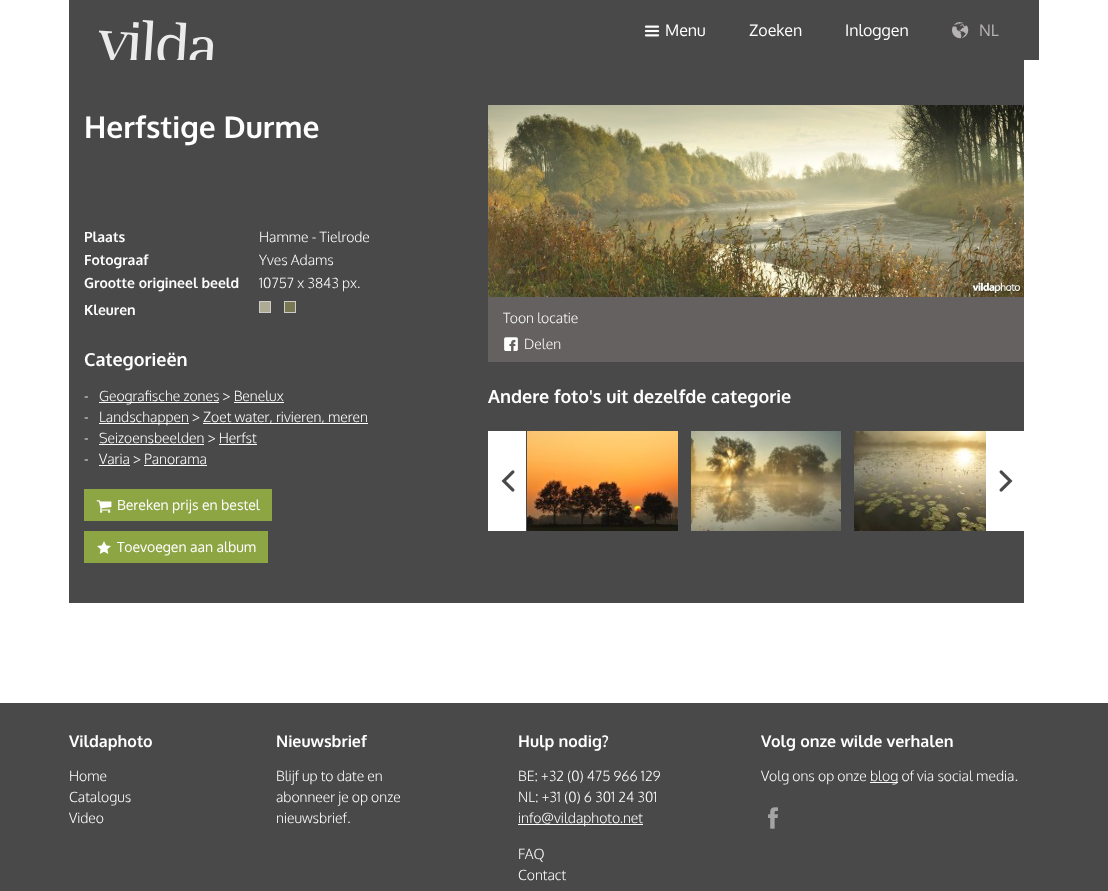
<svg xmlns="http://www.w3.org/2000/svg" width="1108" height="891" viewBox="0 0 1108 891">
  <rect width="100%" height="100%" fill="#ffffff"/>
  <rect x="69" y="0" width="970" height="60" fill="#494949"/>
  <image x="99" y="20" width="114" height="40" href="img1.png"/>
  <image x="644" y="25" width="16" height="12" href="img2.png"/>
  <text x="665" y="36" font-family="Oxygen" font-size="16" fill="#ffffff">Menu</text>
  <text x="749" y="36" font-family="Oxygen" font-size="16" fill="#ffffff">Zoeken</text>
  <text x="845" y="36" font-family="Oxygen" font-size="16" fill="#ffffff">Inloggen</text>
  <image x="952" y="22" width="17" height="17" href="img3.png"/>
  <text x="979" y="36" font-family="Oxygen" font-size="16" fill="#b7b3b3">NL</text>
  <rect x="69" y="60" width="955" height="543" fill="#494949"/>
  <text x="84" y="138" font-family="Oxygen" font-size="30" font-weight="bold" fill="#ffffff">Herfstige Durme</text>
  <text x="84" y="242" font-family="Oxygen" font-size="14" font-weight="bold" fill="#ffffff">Plaats</text>
  <text x="259" y="242" font-family="Oxygen" font-size="14" font-weight="300" fill="#ffffff">Hamme - Tielrode</text>
  <text x="84" y="265" font-family="Oxygen" font-size="14" font-weight="bold" fill="#ffffff">Fotograaf</text>
  <text x="259" y="265" font-family="Oxygen" font-size="14" font-weight="300" fill="#ffffff">Yves Adams</text>
  <text x="84" y="288" font-family="Oxygen" font-size="14" font-weight="bold" fill="#ffffff">Grootte origineel beeld</text>
  <text x="259" y="288" font-family="Oxygen" font-size="14" font-weight="300" fill="#ffffff">10757 x 3843 px.</text>
  <text x="84" y="315" font-family="Oxygen" font-size="14" font-weight="bold" fill="#ffffff">Kleuren</text>
  <rect x="259.5" y="301.5" width="11" height="11" fill="#adab93" stroke="#cccccc"/>
  <rect x="284.5" y="301.5" width="11" height="11" fill="#7a7852" stroke="#cccccc"/>
  <text x="84" y="366" font-family="Oxygen" font-size="18" font-weight="bold" fill="#ffffff">Categorieën</text>
  <text x="84" y="401" font-family="Oxygen" font-size="14" font-weight="300" fill="#ffffff">-</text>
  <rect x="99" y="402" width="120" height="1" fill="#ffffff"/>
  <text x="99" y="401" font-family="Oxygen" font-size="14" font-weight="300" fill="#ffffff">Geografische zones &gt; Benelux</text>
  <rect x="234" y="402" width="50" height="1" fill="#ffffff"/>
  <text x="84" y="422" font-family="Oxygen" font-size="14" font-weight="300" fill="#ffffff">-</text>
  <rect x="99" y="423" width="90" height="1" fill="#ffffff"/>
  <text x="99" y="422" font-family="Oxygen" font-size="14" font-weight="300" fill="#ffffff">Landschappen &gt;</text>
  <rect x="203" y="423" width="165" height="1" fill="#ffffff"/>
  <text x="203" y="422" font-family="Oxygen" font-size="14" font-weight="300" fill="#ffffff">Zoet water, rivieren, meren</text>
  <text x="84" y="443" font-family="Oxygen" font-size="14" font-weight="300" fill="#ffffff">-</text>
  <text x="99" y="443" font-family="Oxygen" font-size="14" font-weight="300" fill="#ffffff">Seizoensbeelden &gt; Herfst</text>
  <rect x="99" y="444" width="105" height="1" fill="#ffffff"/>
  <rect x="219" y="444" width="38" height="1" fill="#ffffff"/>
  <text x="84" y="464" font-family="Oxygen" font-size="14" font-weight="300" fill="#ffffff">-</text>
  <text x="99" y="464" font-family="Oxygen" font-size="14" font-weight="300" fill="#ffffff">Varia &gt; Panorama</text>
  <rect x="99" y="465" width="31" height="1" fill="#ffffff"/>
  <rect x="144" y="465" width="63" height="1" fill="#ffffff"/>
  <rect x="84" y="489" width="188" height="32" fill="#8ea544"/>
  <image x="96" y="500" width="16" height="13" href="img4.png"/>
  <text x="117" y="510" font-family="Oxygen" font-size="14" fill="#ffffff">Bereken prijs en bestel</text>
  <rect x="84" y="531" width="184" height="32" fill="#8ea544"/>
  <image x="97" y="541" width="14" height="13" href="img5.png"/>
  <text x="117" y="552" font-family="Oxygen" font-size="14" fill="#ffffff">Toevoegen aan album</text>
  <image x="488" y="105" width="536" height="192" href="img6.png"/>
  <rect x="488" y="297" width="536" height="65" fill="#646160"/>
  <text x="503" y="323" font-family="Oxygen" font-size="14" font-weight="300" fill="#ffffff">Toon locatie</text>
  <image x="504" y="337" width="14" height="14" href="img7.png"/>
  <text x="524" y="349" font-family="Oxygen" font-size="14" font-weight="300" fill="#ffffff">Delen</text>
  <text x="488" y="403" font-family="Oxygen" font-size="18" font-weight="bold" fill="#ffffff">Andere foto's uit dezelfde categorie</text>
  <rect x="488" y="431" width="38" height="100" fill="#ffffff"/>
  <image x="501" y="470" width="14" height="22" href="img8.png"/>
  <rect x="986" y="431" width="38" height="100" fill="#ffffff"/>
  <image x="999" y="470" width="14" height="22" href="img9.png"/>
  <image x="527" y="431" width="151" height="100" href="img10.png"/>
  <image x="691" y="431" width="150" height="100" href="img11.png"/>
  <image x="854" y="431" width="132" height="100" href="img12.png"/>
  <rect x="0" y="703" width="1108" height="188" fill="#494949"/>
  <text x="69" y="747" font-family="Oxygen" font-size="16" font-weight="bold" fill="#ffffff">Vildaphoto</text>
  <text x="69" y="781" font-family="Oxygen" font-size="14" font-weight="300" fill="#ffffff">Home</text>
  <text x="69" y="802" font-family="Oxygen" font-size="14" font-weight="300" fill="#ffffff">Catalogus</text>
  <text x="69" y="823" font-family="Oxygen" font-size="14" font-weight="300" fill="#ffffff">Video</text>
  <text x="276" y="747" font-family="Oxygen" font-size="16" font-weight="bold" fill="#ffffff">Nieuwsbrief</text>
  <text x="276" y="781" font-family="Oxygen" font-size="14" font-weight="300" fill="#ffffff">Blijf up to date en</text>
  <text x="276" y="802" font-family="Oxygen" font-size="14" font-weight="300" fill="#ffffff">abonneer je op onze</text>
  <text x="276" y="823" font-family="Oxygen" font-size="14" font-weight="300" fill="#ffffff">nieuwsbrief.</text>
  <text x="518" y="747" font-family="Oxygen" font-size="16" font-weight="bold" fill="#ffffff">Hulp nodig?</text>
  <text x="518" y="781" font-family="Oxygen" font-size="14" font-weight="300" fill="#ffffff">BE: +32 (0) 475 966 129</text>
  <text x="518" y="802" font-family="Oxygen" font-size="14" font-weight="300" fill="#ffffff">NL: +31 (0) 6 301 24 301</text>
  <rect x="518" y="824" width="125" height="1" fill="#ffffff"/>
  <text x="518" y="823" font-family="Oxygen" font-size="14" font-weight="300" fill="#ffffff">info@vildaphoto.net</text>
  <text x="518" y="859" font-family="Oxygen" font-size="14" font-weight="300" fill="#ffffff">FAQ</text>
  <text x="518" y="880" font-family="Oxygen" font-size="14" font-weight="300" fill="#ffffff">Contact</text>
  <text x="761" y="747" font-family="Oxygen" font-size="16" font-weight="bold" fill="#ffffff">Volg onze wilde verhalen</text>
  <text x="761" y="781" font-family="Oxygen" font-size="14" font-weight="300" fill="#ffffff">Volg ons op onze</text>
  <rect x="870" y="782" width="28" height="1" fill="#ffffff"/>
  <text x="870" y="781" font-family="Oxygen" font-size="14" font-weight="300" fill="#ffffff">blog of via social media.</text>
  <image x="768" y="807" width="10" height="22" href="img13.png"/>
</svg>
